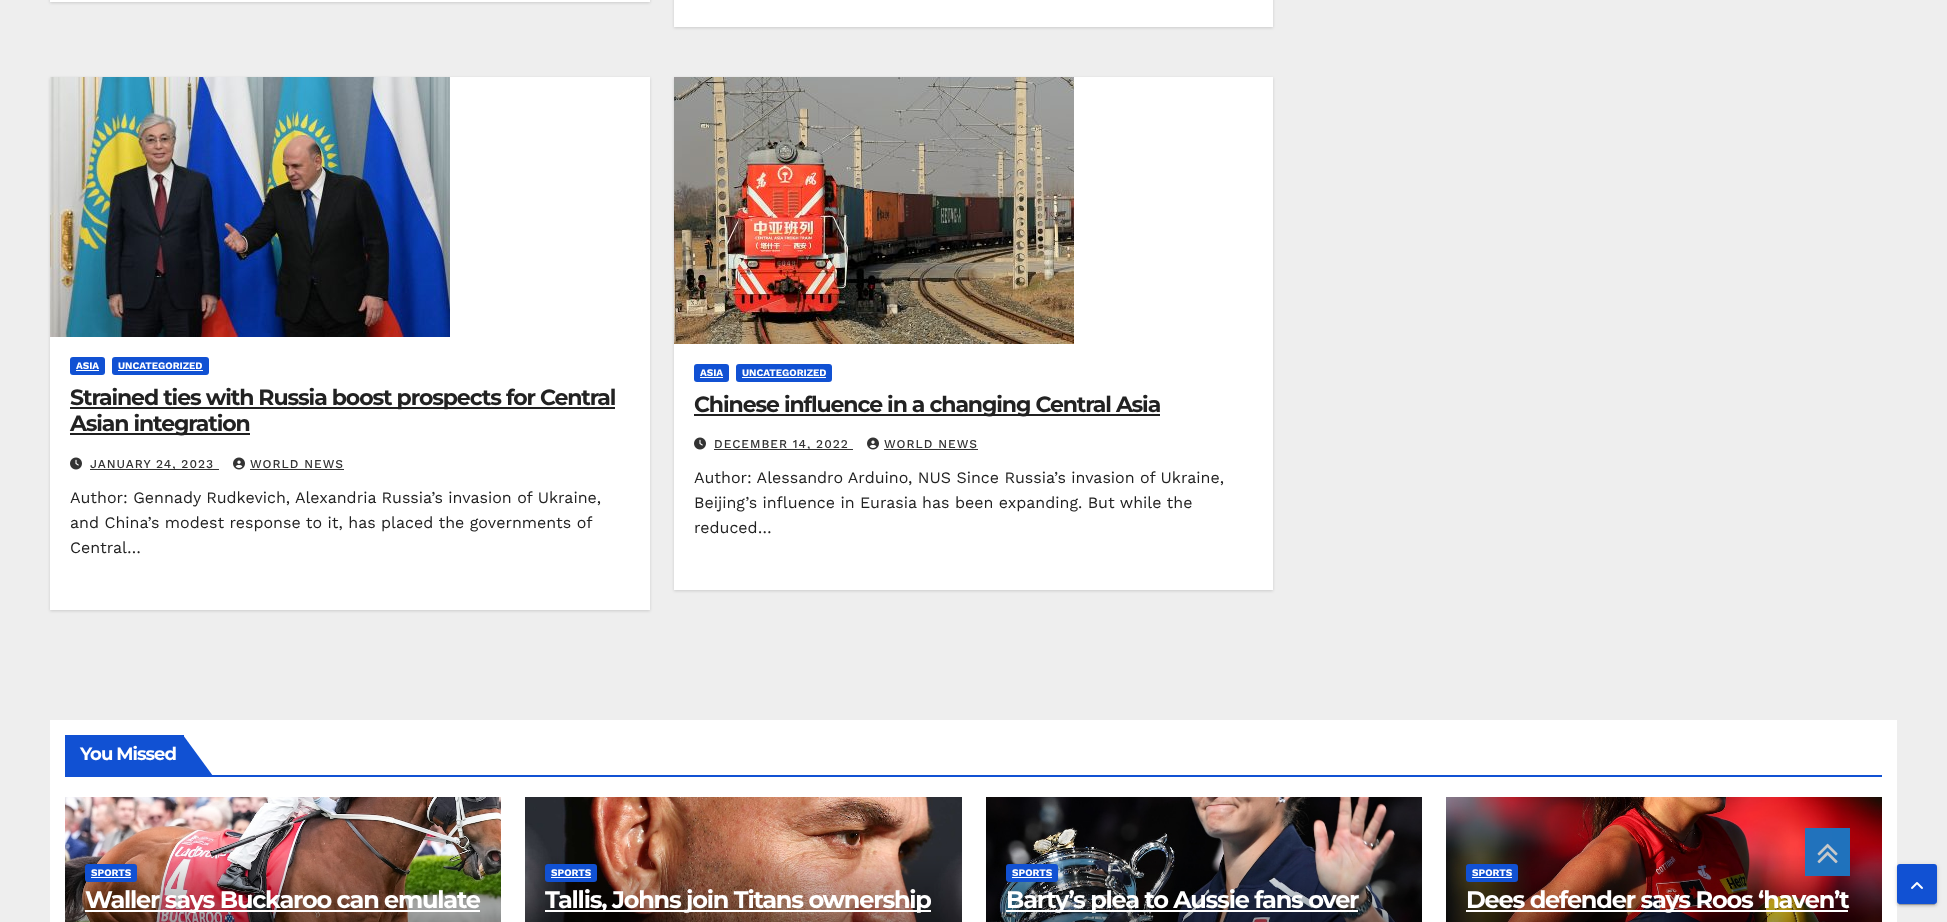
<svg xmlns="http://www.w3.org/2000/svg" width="1947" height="922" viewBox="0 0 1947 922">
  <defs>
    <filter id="blur1" x="-50%" y="-200%" width="200%" height="500%"><feGaussianBlur stdDeviation="1.5"/></filter>
    <filter id="blur2" x="-50%" y="-200%" width="200%" height="500%"><feGaussianBlur stdDeviation="2.5"/></filter>
    <filter id="blur3" x="-50%" y="-200%" width="200%" height="500%"><feGaussianBlur stdDeviation="0.5"/></filter>
    <filter id="blur4" x="-50%" y="-200%" width="200%" height="500%"><feGaussianBlur stdDeviation="1"/></filter>
  </defs>
  <rect width="100%" height="100%" fill="#eeeeee"/>
  <rect x="50" y="-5" width="600" height="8" fill="#000000" fill-opacity="0.15" filter="url(#blur1)"/>
  <rect x="50" y="0" width="600" height="2" fill="#ffffff"/>
  <rect x="674" y="-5" width="599" height="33" fill="#000000" fill-opacity="0.15" filter="url(#blur1)"/>
  <rect x="674" y="0" width="599" height="27" fill="#ffffff"/>
  <rect x="50" y="78" width="600" height="533" fill="#000000" fill-opacity="0.15" filter="url(#blur1)"/>
  <rect x="50" y="77" width="600" height="533" fill="#ffffff"/>
  <image x="50" y="77" width="400" height="260" href="img1.png"/>
  <rect x="70" y="357" width="35" height="18" rx="3" fill="#1151d3"/>
  <text x="76" y="369" font-family="Work Sans" font-size="10" font-weight="bold" fill="#ffffff">ASIA</text>
  <rect x="76" y="370" width="23" height="1" fill="#ffffff"/>
  <rect x="112" y="357" width="97" height="18" rx="3" fill="#1151d3"/>
  <text x="118" y="369" font-family="Work Sans" font-size="10" font-weight="bold" fill="#ffffff">UNCATEGORIZED</text>
  <rect x="118" y="370" width="85" height="1" fill="#ffffff"/>
  <rect x="70" y="407" width="545" height="2" fill="#212121"/>
  <text x="70" y="405" font-family="Montserrat" font-size="22" font-weight="bold" letter-spacing="-1.1" fill="#222222">Strained ties with Russia boost prospects for Central</text>
  <rect x="70" y="433" width="180" height="2" fill="#212121"/>
  <text x="70" y="431" font-family="Montserrat" font-size="22" font-weight="bold" letter-spacing="-1.1" fill="#222222">Asian integration</text>
  <image x="70" y="457" width="12" height="13" href="img2.png"/>
  <rect x="90" y="469" width="129" height="1" fill="#333333"/>
  <text x="90" y="468" font-family="Work Sans" font-size="12" font-weight="500" letter-spacing="1" fill="#333333">JANUARY 24, 2023</text>
  <image x="233" y="457" width="12" height="13" href="img3.png"/>
  <text x="250" y="468" font-family="Work Sans" font-size="12" font-weight="500" letter-spacing="1" fill="#333333">WORLD NEWS</text>
  <rect x="250" y="469" width="94" height="1" fill="#333333"/>
  <text x="70" y="503" font-family="Work Sans" font-size="16" fill="#222222">Author: Gennady Rudkevich, Alexandria Russia’s invasion of Ukraine,</text>
  <text x="70" y="528" font-family="Work Sans" font-size="16" fill="#222222">and China’s modest response to it, has placed the governments of</text>
  <text x="70" y="553" font-family="Work Sans" font-size="16" fill="#222222">Central…</text>
  <rect x="674" y="78" width="599" height="513" fill="#000000" fill-opacity="0.15" filter="url(#blur1)"/>
  <rect x="674" y="77" width="599" height="513" fill="#ffffff"/>
  <image x="674" y="77" width="400" height="267" href="img4.png"/>
  <rect x="694" y="364" width="35" height="18" rx="3" fill="#1151d3"/>
  <text x="700" y="376" font-family="Work Sans" font-size="10" font-weight="bold" fill="#ffffff">ASIA</text>
  <rect x="700" y="377" width="23" height="1" fill="#ffffff"/>
  <rect x="736" y="364" width="96" height="18" rx="3" fill="#1151d3"/>
  <text x="742" y="376" font-family="Work Sans" font-size="10" font-weight="bold" fill="#ffffff">UNCATEGORIZED</text>
  <rect x="742" y="377" width="84" height="1" fill="#ffffff"/>
  <rect x="694" y="414" width="466" height="2" fill="#212121"/>
  <text x="694" y="412" font-family="Montserrat" font-size="22" font-weight="bold" letter-spacing="-1.1" fill="#222222">Chinese influence in a changing Central Asia</text>
  <image x="694" y="437" width="12" height="13" href="img2.png"/>
  <rect x="714" y="449" width="139" height="1" fill="#333333"/>
  <text x="714" y="448" font-family="Work Sans" font-size="12" font-weight="500" letter-spacing="1" fill="#333333">DECEMBER 14, 2022</text>
  <image x="867" y="437" width="12" height="13" href="img3.png"/>
  <text x="884" y="448" font-family="Work Sans" font-size="12" font-weight="500" letter-spacing="1" fill="#333333">WORLD NEWS</text>
  <rect x="884" y="449" width="94" height="1" fill="#333333"/>
  <text x="694" y="483" font-family="Work Sans" font-size="16" fill="#222222">Author: Alessandro Arduino, NUS Since Russia’s invasion of Ukraine,</text>
  <text x="694" y="508" font-family="Work Sans" font-size="16" fill="#222222">Beijing’s influence in Eurasia has been expanding. But while the</text>
  <text x="694" y="533" font-family="Work Sans" font-size="16" fill="#222222">reduced…</text>
  <rect x="50" y="720" width="1847" height="202" fill="#ffffff"/>
  <rect x="65" y="775" width="1817" height="2" fill="#1151d3"/>
  <rect x="65" y="735" width="119" height="40" fill="#1151d3"/>
  <text x="80" y="760" font-family="Montserrat" font-size="18" font-weight="bold" letter-spacing="-1" fill="#ffffff">You Missed</text>
  <path d="M183 735V776H213Z" fill="#1151d3"/>
  <image x="65" y="797" width="436" height="125" href="img5.png"/>
  <rect x="85" y="864" width="52" height="18" rx="3" fill="#1151d3"/>
  <text x="91" y="876" font-family="Work Sans" font-size="10" font-weight="bold" fill="#ffffff">SPORTS</text>
  <rect x="91" y="877" width="40" height="1" fill="#ffffff"/>
  <rect x="85" y="910" width="395" height="2" fill="#ffffff"/>
  <text x="85" y="908" font-family="Montserrat" font-size="24" font-weight="bold" letter-spacing="-1.2" fill="#ffffff">Waller says Buckaroo can emulate</text>
  <image x="525" y="797" width="437" height="125" href="img6.png"/>
  <rect x="545" y="864" width="52" height="18" rx="3" fill="#1151d3"/>
  <text x="551" y="876" font-family="Work Sans" font-size="10" font-weight="bold" fill="#ffffff">SPORTS</text>
  <rect x="551" y="877" width="40" height="1" fill="#ffffff"/>
  <rect x="545" y="910" width="386" height="2" fill="#ffffff"/>
  <text x="545" y="908" font-family="Montserrat" font-size="24" font-weight="bold" letter-spacing="-1.2" fill="#ffffff">Tallis, Johns join Titans ownership</text>
  <image x="986" y="797" width="436" height="125" href="img7.png"/>
  <rect x="1006" y="864" width="52" height="18" rx="3" fill="#1151d3"/>
  <text x="1012" y="876" font-family="Work Sans" font-size="10" font-weight="bold" fill="#ffffff">SPORTS</text>
  <rect x="1012" y="877" width="40" height="1" fill="#ffffff"/>
  <rect x="1006" y="910" width="352" height="2" fill="#ffffff"/>
  <text x="1006" y="908" font-family="Montserrat" font-size="24" font-weight="bold" letter-spacing="-1.2" fill="#ffffff">Barty’s plea to Aussie fans over</text>
  <image x="1446" y="797" width="436" height="125" href="img8.png"/>
  <rect x="1466" y="864" width="52" height="18" rx="3" fill="#1151d3"/>
  <text x="1472" y="876" font-family="Work Sans" font-size="10" font-weight="bold" fill="#ffffff">SPORTS</text>
  <rect x="1472" y="877" width="40" height="1" fill="#ffffff"/>
  <rect x="1466" y="910" width="382" height="2" fill="#ffffff"/>
  <text x="1466" y="908" font-family="Montserrat" font-size="24" font-weight="bold" letter-spacing="-1.2" fill="#ffffff">Dees defender says Roos ‘haven’t</text>
  <rect x="1805" y="828" width="45" height="48" fill="#1e73be" fill-opacity="0.99"/>
  <image x="1817" y="843" width="21" height="21" href="img9.png"/>
  <rect x="1897" y="865" width="40" height="40" rx="3" fill="#000000" fill-opacity="0.12" filter="url(#blur2)"/>
  <rect x="1899" y="869" width="36" height="36" rx="1" fill="#000000" fill-opacity="0.2" filter="url(#blur3)"/>
  <rect x="1897" y="866" width="40" height="40" rx="3" fill="#000000" fill-opacity="0.14" filter="url(#blur4)"/>
  <rect x="1898" y="865" width="38" height="38" rx="2" fill="#1151d3" stroke="#1151d3" stroke-width="2"/>
  <image x="1911" y="882" width="12" height="7" href="img10.png"/>
</svg>
